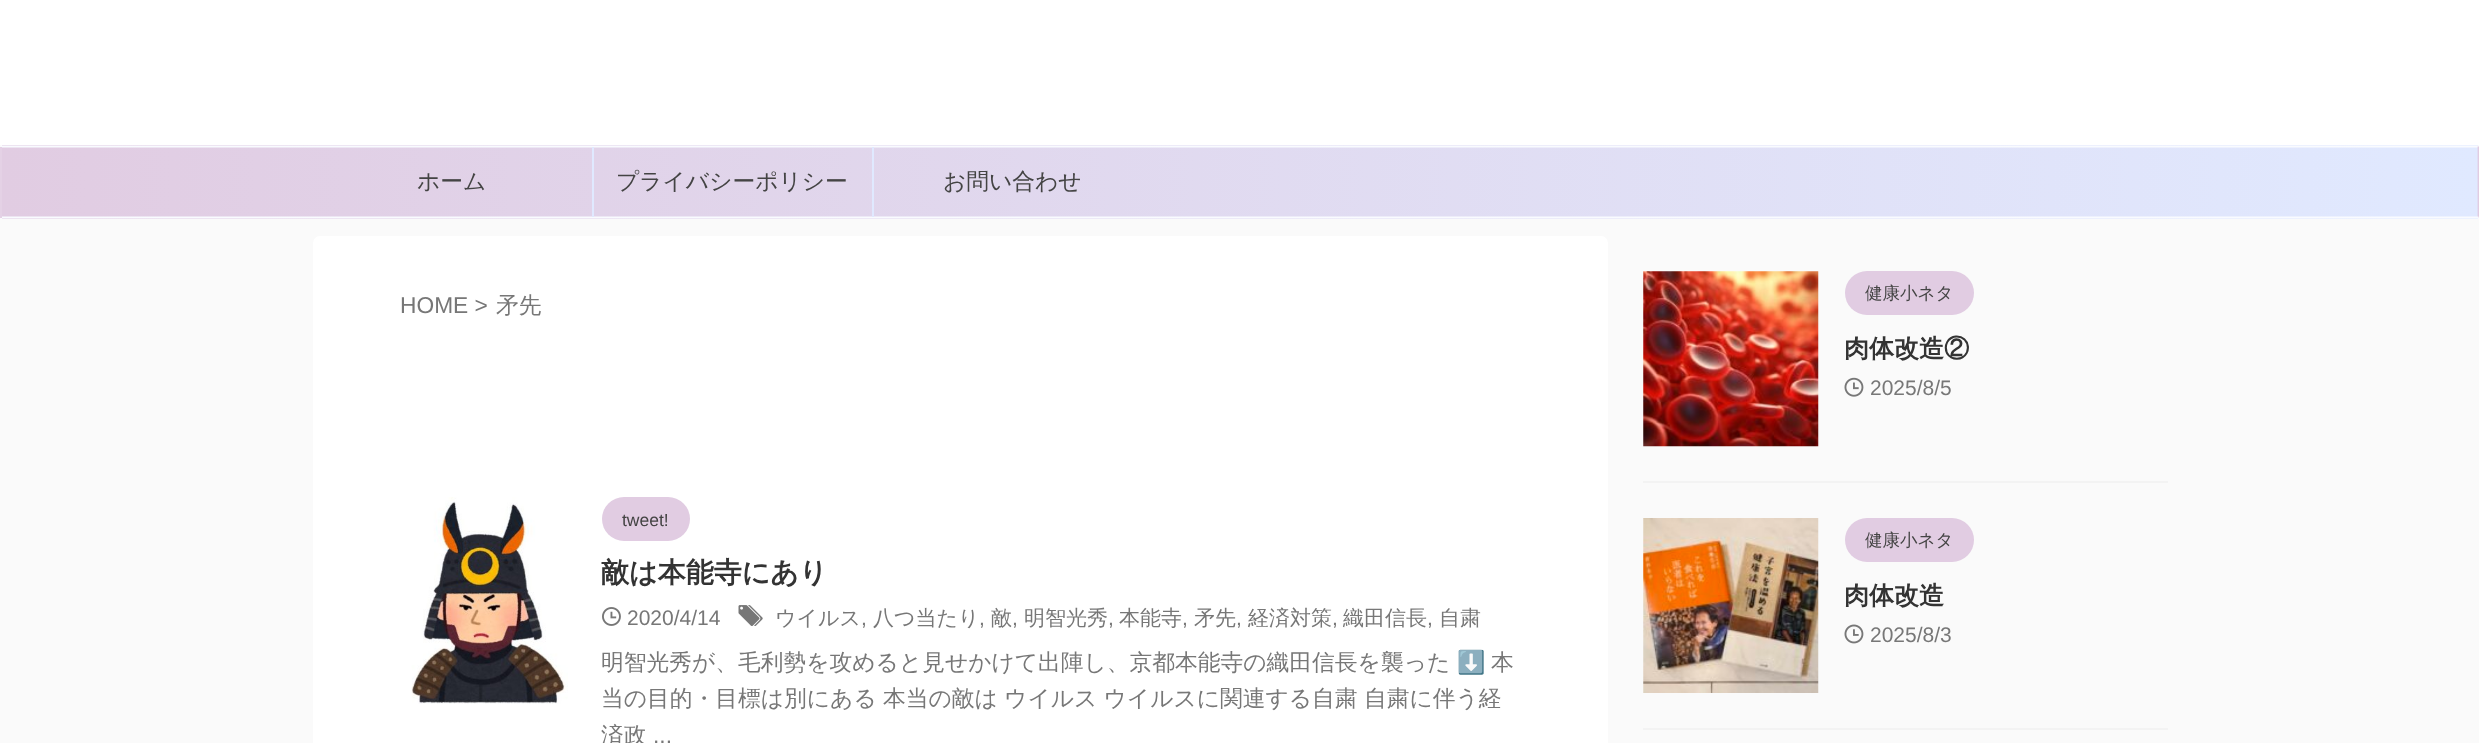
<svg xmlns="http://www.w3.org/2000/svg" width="2479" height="743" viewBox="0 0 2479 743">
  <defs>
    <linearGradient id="g1" gradientUnits="userSpaceOnUse" x1="2478" y1="182" x2="1.8" y2="182"><stop offset="0" stop-color="#e0e9ff"/><stop offset="1" stop-color="#e1cce2"/></linearGradient>
  </defs>
  <rect width="100%" height="100%" fill="#fafafa"/>
  <rect x="0" y="0" width="2479" height="145" fill="#ffffff"/>
  <rect x="2" y="145" width="2476" height="74" fill="url(#g1)"/>
  <path d="M1 146.5H2478.5" fill="none" stroke="#f9fbff" stroke-width="1.8"/>
  <path d="M2478.5 146.5V217.5" fill="none" stroke="#e1cce2" stroke-width="1.8"/>
  <path d="M2478.5 217.5H1" fill="none" stroke="#f9fbff" stroke-width="1.8"/>
  <rect x="0" y="147" width="2" height="71" fill="#e1cce2" fill-opacity="0.9"/>
  <rect x="592" y="147" width="2" height="70" fill="#e0e9ff"/>
  <text x="417" y="189" font-family="WenQuanYi Zen Hei" font-size="22.75" font-weight="500" fill="#444444">ホーム</text>
  <rect x="872" y="147" width="2" height="70" fill="#e0e9ff"/>
  <text x="616" y="189" font-family="WenQuanYi Zen Hei" font-size="22.75" font-weight="500" fill="#444444">プライバシーポリシー</text>
  <text x="943" y="189" font-family="WenQuanYi Zen Hei" font-size="22.75" font-weight="500" fill="#444444">お問い合わせ</text>
  <rect x="313" y="236" width="1295" height="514" rx="7" fill="#ffffff"/>
  <text x="400" y="313" font-family="Liberation Sans" font-size="22.75" fill="#777777">HOME &gt;</text>
  <text x="496" y="313" font-family="WenQuanYi Zen Hei" font-size="22.75" font-weight="500" fill="#777777">矛先</text>
  <image x="411" y="497" width="157" height="207" href="img1.png"/>
  <rect x="602" y="497" width="88" height="44" rx="22" fill="#e1cce2"/>
  <text x="622" y="526" font-family="Liberation Sans" font-size="17.5" fill="#444444">tweet!</text>
  <text x="601" y="582" font-family="WenQuanYi Zen Hei" font-size="28" font-weight="bold" fill="#333333">敵は本能寺にあり</text>
  <image x="602" y="607" width="19" height="19" href="img2.png"/>
  <text x="627" y="625" font-family="Liberation Sans" font-size="21" fill="#777777">2020/4/14</text>
  <image x="738" y="605" width="25" height="21" href="img3.png"/>
  <text x="775" y="625" font-family="WenQuanYi Zen Hei" font-size="21" font-weight="500" fill="#777777">ウイルス</text>
  <text x="861" y="625" font-family="Liberation Sans" font-size="21" fill="#777777">,</text>
  <text x="873" y="625" font-family="WenQuanYi Zen Hei" font-size="21" font-weight="500" fill="#777777">八つ当たり</text>
  <text x="979" y="625" font-family="Liberation Sans" font-size="21" fill="#777777">,</text>
  <text x="991" y="625" font-family="WenQuanYi Zen Hei" font-size="21" font-weight="500" fill="#777777">敵</text>
  <text x="1012" y="625" font-family="Liberation Sans" font-size="21" fill="#777777">,</text>
  <text x="1024" y="625" font-family="WenQuanYi Zen Hei" font-size="21" font-weight="500" fill="#777777">明智光秀</text>
  <text x="1108" y="625" font-family="Liberation Sans" font-size="21" fill="#777777">,</text>
  <text x="1119" y="625" font-family="WenQuanYi Zen Hei" font-size="21" font-weight="500" fill="#777777">本能寺</text>
  <text x="1182" y="625" font-family="Liberation Sans" font-size="21" fill="#777777">,</text>
  <text x="1194" y="625" font-family="WenQuanYi Zen Hei" font-size="21" font-weight="500" fill="#777777">矛先</text>
  <text x="1236" y="625" font-family="Liberation Sans" font-size="21" fill="#777777">,</text>
  <text x="1248" y="625" font-family="WenQuanYi Zen Hei" font-size="21" font-weight="500" fill="#777777">経済対策</text>
  <text x="1332" y="625" font-family="Liberation Sans" font-size="21" fill="#777777">,</text>
  <text x="1343" y="625" font-family="WenQuanYi Zen Hei" font-size="21" font-weight="500" fill="#777777">織田信長</text>
  <text x="1427" y="625" font-family="Liberation Sans" font-size="21" fill="#777777">,</text>
  <text x="1439" y="625" font-family="WenQuanYi Zen Hei" font-size="21" font-weight="500" fill="#777777">自粛</text>
  <text x="601" y="670" font-family="WenQuanYi Zen Hei" font-size="22.75" font-weight="500" fill="#777777">明智光秀が、毛利勢を攻めると見せかけて出陣し、京都本能寺の織田信長を襲った</text>
  <text x="1457" y="670" font-family="Noto Color Emoji" font-size="22.75" fill="#777777">⬇️</text>
  <text x="1491" y="670" font-family="WenQuanYi Zen Hei" font-size="22.75" font-weight="500" fill="#777777">本</text>
  <text x="601" y="706" word-spacing="-0.5" font-family="WenQuanYi Zen Hei" font-size="22.75" font-weight="500" fill="#777777">当の目的・目標は別にある 本当の敵は ウイルス ウイルスに関連する自粛 自粛に伴う経</text>
  <text x="601" y="743" font-family="WenQuanYi Zen Hei" font-size="22.75" font-weight="500" fill="#777777">済政</text>
  <text x="653" y="743" font-family="Liberation Sans" font-size="22.75" fill="#777777">...</text>
  <rect x="1643" y="481" width="525" height="2" fill="#f3f3f3"/>
  <image x="1643" y="271" width="176" height="176" href="img4.png"/>
  <rect x="1845" y="271" width="129" height="44" rx="22" fill="#e1cce2"/>
  <text x="1865" y="299" font-family="WenQuanYi Zen Hei" font-size="17.5" font-weight="500" fill="#444444">健康小ネタ</text>
  <text x="1844" y="357" font-family="WenQuanYi Zen Hei" font-size="25" font-weight="bold" fill="#333333">肉体改造②</text>
  <image x="1844" y="377" width="20" height="20" href="img5.png"/>
  <text x="1870" y="395" font-family="Liberation Sans" font-size="21" fill="#777777">2025/8/5</text>
  <rect x="1643" y="728" width="525" height="2" fill="#f3f3f3"/>
  <image x="1643" y="518" width="176" height="175" href="img6.png"/>
  <rect x="1845" y="518" width="129" height="44" rx="22" fill="#e1cce2"/>
  <text x="1865" y="546" font-family="WenQuanYi Zen Hei" font-size="17.5" font-weight="500" fill="#444444">健康小ネタ</text>
  <text x="1844" y="604" font-family="WenQuanYi Zen Hei" font-size="25" font-weight="bold" fill="#333333">肉体改造</text>
  <image x="1844" y="624" width="20" height="20" href="img7.png"/>
  <text x="1870" y="642" font-family="Liberation Sans" font-size="21" fill="#777777">2025/8/3</text>
</svg>
